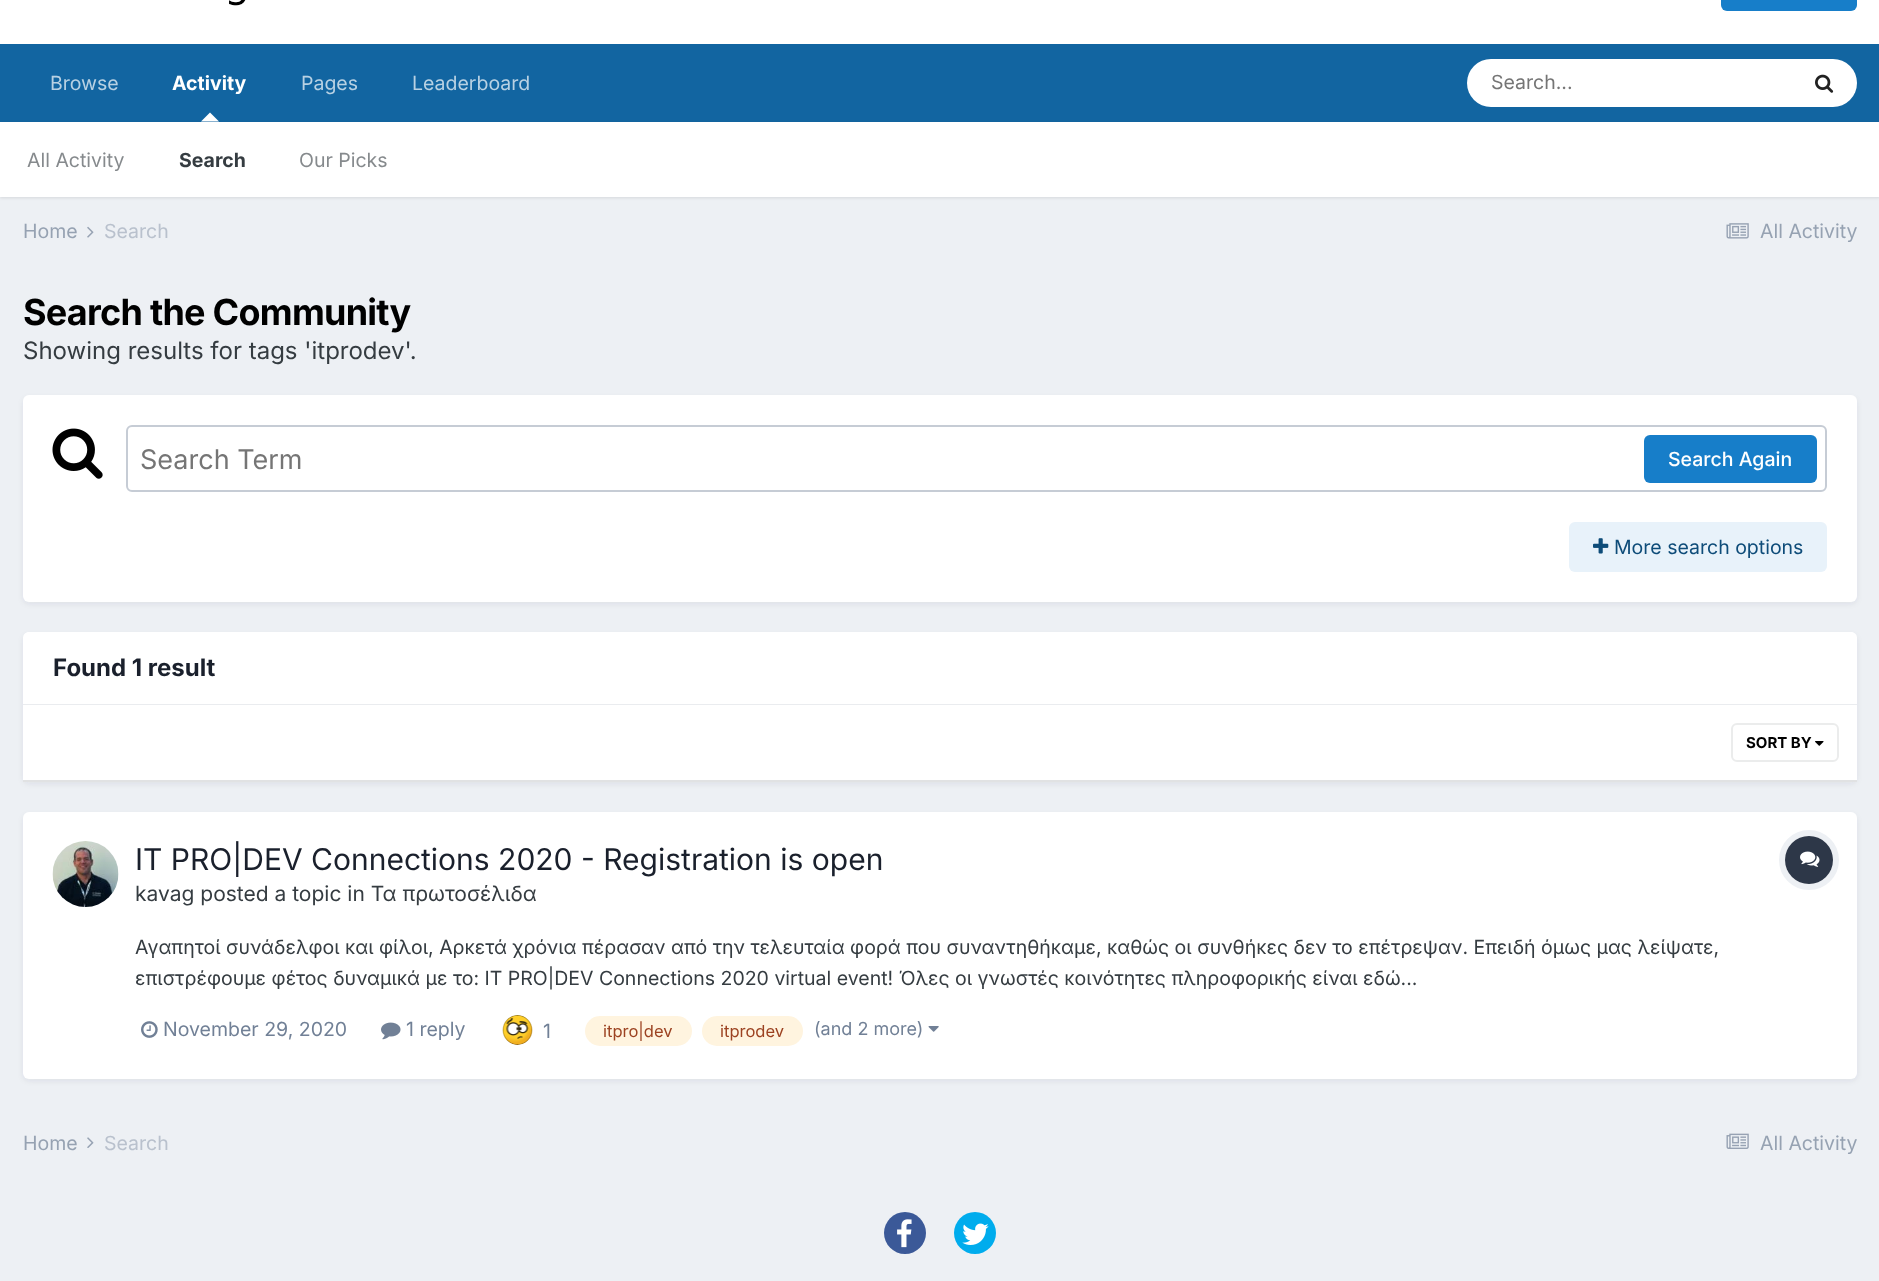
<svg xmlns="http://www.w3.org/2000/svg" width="1879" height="1281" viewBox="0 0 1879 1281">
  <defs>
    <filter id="blur1" x="-50%" y="-200%" width="200%" height="500%"><feGaussianBlur stdDeviation="1.5"/></filter>
    <filter id="blur2" x="-50%" y="-200%" width="200%" height="500%"><feGaussianBlur stdDeviation="3"/></filter>
  </defs>
  <rect width="100%" height="100%" fill="#edf0f4"/>
  <rect x="0" y="0" width="1879" height="44" fill="#ffffff"/>
  <image x="229" y="0" width="17" height="6" href="img1.png"/>
  <rect x="1721" y="-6" width="136" height="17" rx="6" fill="#177ec9"/>
  <rect x="0" y="44" width="1879" height="78" fill="#1265a1"/>
  <text x="172" y="90" font-family="Inter" font-size="19.5" font-weight="bold" fill="#ffffff">Activity</text>
  <rect x="0" y="123" width="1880" height="75" fill="#000000" fill-opacity="0.1" filter="url(#blur1)"/>
  <path d="M219 121.5H201L210 112.5Z" fill="#ffffff"/>
  <rect x="0" y="122" width="1879" height="75" fill="#ffffff"/>
  <text x="27" y="167" font-family="Inter" font-size="19.5" fill="#868a8d">All Activity</text>
  <text x="179" y="167" font-family="Inter" font-size="19.5" font-weight="bold" fill="#353c41">Search</text>
  <text x="299" y="167" font-family="Inter" font-size="19.5" fill="#868a8d">Our Picks</text>
  <text x="50" y="90" font-family="Inter" font-size="19.5" fill="#b8d1e3">Browse</text>
  <text x="301" y="90" font-family="Inter" font-size="19.5" fill="#b8d1e3">Pages</text>
  <text x="412" y="90" font-family="Inter" font-size="19.5" fill="#b8d1e3">Leaderboard</text>
  <rect x="1467" y="59" width="390" height="48" rx="24" fill="#ffffff"/>
  <text x="1491" y="89" font-family="Inter" font-size="19.5" fill="#757575">Search...</text>
  <image x="1815" y="74" width="19" height="19" href="img2.png"/>
  <text x="23" y="238" font-family="Inter" font-size="19.5" fill="#96a2b2">Home</text>
  <image x="87" y="226" width="7" height="12" href="img3.png"/>
  <text x="104" y="238" font-family="Inter" font-size="19.5" fill="#b9c1cd">Search</text>
  <image x="1726" y="223" width="23" height="16" href="img4.png"/>
  <text x="1760" y="238" font-family="Inter" font-size="19.5" fill="#96a2b2">All Activity</text>
  <text x="23" y="325" font-family="Inter" font-size="36" font-weight="bold" letter-spacing="-0.75" fill="#000000">Search the Community</text>
  <text x="23" y="359" font-family="Inter" font-size="24" fill="#353c41">Showing results for tags 'itprodev'.</text>
  <rect x="24" y="399" width="1832" height="204" rx="5" fill="#2d3748" fill-opacity="0.1" filter="url(#blur2)"/>
  <rect x="23" y="395" width="1834" height="207" rx="6" fill="#ffffff"/>
  <image x="52" y="428" width="51" height="51" href="img5.png"/>
  <rect x="127" y="426" width="1699" height="65" rx="5" fill="none" stroke="#c6ccd5" stroke-width="2"/>
  <text x="140" y="469" font-family="Inter" font-size="27" fill="#757575">Search Term</text>
  <rect x="1644" y="435" width="173" height="48" rx="6" fill="#177ec9"/>
  <text x="1668" y="466" font-family="Inter" font-size="19.5" font-weight="500" fill="#ffffff">Search Again</text>
  <rect x="1569" y="522" width="258" height="50" rx="6" fill="#e8f2fa"/>
  <image x="1593" y="538" width="16" height="16" href="img6.png"/>
  <text x="1614" y="554" font-family="Inter" font-size="19.5" fill="#0e4c79">More search options</text>
  <rect x="24" y="636" width="1832" height="147" rx="5" fill="#2d3748" fill-opacity="0.1" filter="url(#blur2)"/>
  <path d="M29 632H1851C1854.5 632 1857 634.5 1857 638V705H23V638C23 634.5 25.5 632 29 632Z" fill="#ffffff"/>
  <rect x="23" y="704" width="1834" height="1" fill="#eaecef"/>
  <text x="53" y="676" font-family="Inter" font-size="24" font-weight="bold" fill="#1a202c">Found 1 result</text>
  <rect x="23" y="705" width="1834" height="75" fill="#ffffff"/>
  <rect x="23" y="780" width="1834" height="2" fill="#e1e2e3"/>
  <image x="1815" y="741" width="9" height="5" href="img7.png"/>
  <rect x="1732" y="724" width="106" height="37" rx="5" fill="none" stroke="#ebecec" stroke-width="2"/>
  <text x="1746" y="748" font-family="Inter" font-size="15" font-weight="bold" fill="#000000">SORT BY</text>
  <rect x="24" y="816" width="1832" height="264" rx="5" fill="#2d3748" fill-opacity="0.1" filter="url(#blur2)"/>
  <rect x="23" y="812" width="1834" height="267" rx="6" fill="#ffffff"/>
  <image x="52" y="841" width="67" height="66" href="img8.png"/>
  <text x="135" y="870" font-family="Inter" font-size="30" fill="#1a202c">IT PRO|DEV Connections 2020 - Registration is open</text>
  <text x="135" y="901" font-family="Inter" font-size="21" fill="#353c41">kavag posted a topic in Τα πρωτοσέλιδα</text>
  <circle cx="1809" cy="860" r="27" fill="none" stroke="#edf0f4" stroke-width="6"/>
  <circle cx="1809" cy="860" r="24" fill="#2d3748"/>
  <image x="1800" y="851" width="20" height="16" href="img9.png"/>
  <text x="135" y="954" font-family="Inter" font-size="19.5" fill="#353c41">Αγαπητοί συνάδελφοι και φίλοι, Αρκετά χρόνια πέρασαν από την τελευταία φορά που συναντηθήκαμε, καθώς οι συνθήκες δεν το επέτρεψαν. Επειδή όμως μας λείψατε,</text>
  <text x="135" y="985" font-family="Inter" font-size="19.5" fill="#353c41">επιστρέφουμε φέτος δυναμικά με το: IT PRO|DEV Connections 2020 virtual event! Όλες οι γνωστές κοινότητες πληροφορικής είναι εδώ...</text>
  <image x="141" y="1021" width="17" height="17" href="img10.png"/>
  <text x="163" y="1036" font-family="Inter" font-size="19.5" fill="#718096">November 29, 2020</text>
  <image x="381" y="1022" width="20" height="18" href="img11.png"/>
  <text x="406" y="1036" font-family="Inter" font-size="19.5" fill="#718096">1 reply</text>
  <image x="502" y="1015" width="31" height="30" href="img12.png"/>
  <text x="543" y="1038" font-family="Inter" font-size="19.5" fill="#718096">1</text>
  <rect x="585" y="1016" width="107" height="30" rx="15" fill="#fff4df"/>
  <text x="603" y="1037" font-family="Inter" font-size="16.5" fill="#9c4221">itpro|dev</text>
  <rect x="702" y="1016" width="101" height="30" rx="15" fill="#fff4df"/>
  <text x="720" y="1037" font-family="Inter" font-size="16.5" fill="#9c4221">itprodev</text>
  <text x="814" y="1035" font-family="Inter" font-size="18" fill="#718096">(and 2 more)</text>
  <image x="928" y="1026" width="11" height="6" href="img13.png"/>
  <text x="23" y="1150" font-family="Inter" font-size="19.5" fill="#96a2b2">Home</text>
  <image x="87" y="1137" width="7" height="11" href="img14.png"/>
  <text x="104" y="1150" font-family="Inter" font-size="19.5" fill="#b9c1cd">Search</text>
  <image x="1726" y="1133" width="23" height="16" href="img15.png"/>
  <text x="1760" y="1150" font-family="Inter" font-size="19.5" fill="#96a2b2">All Activity</text>
  <circle cx="905" cy="1233" r="21" fill="#3b5998"/>
  <image x="897" y="1219" width="15" height="29" href="img16.png"/>
  <circle cx="975" cy="1233" r="21" fill="#00aced"/>
  <image x="962" y="1223" width="27" height="22" href="img17.png"/>
</svg>
